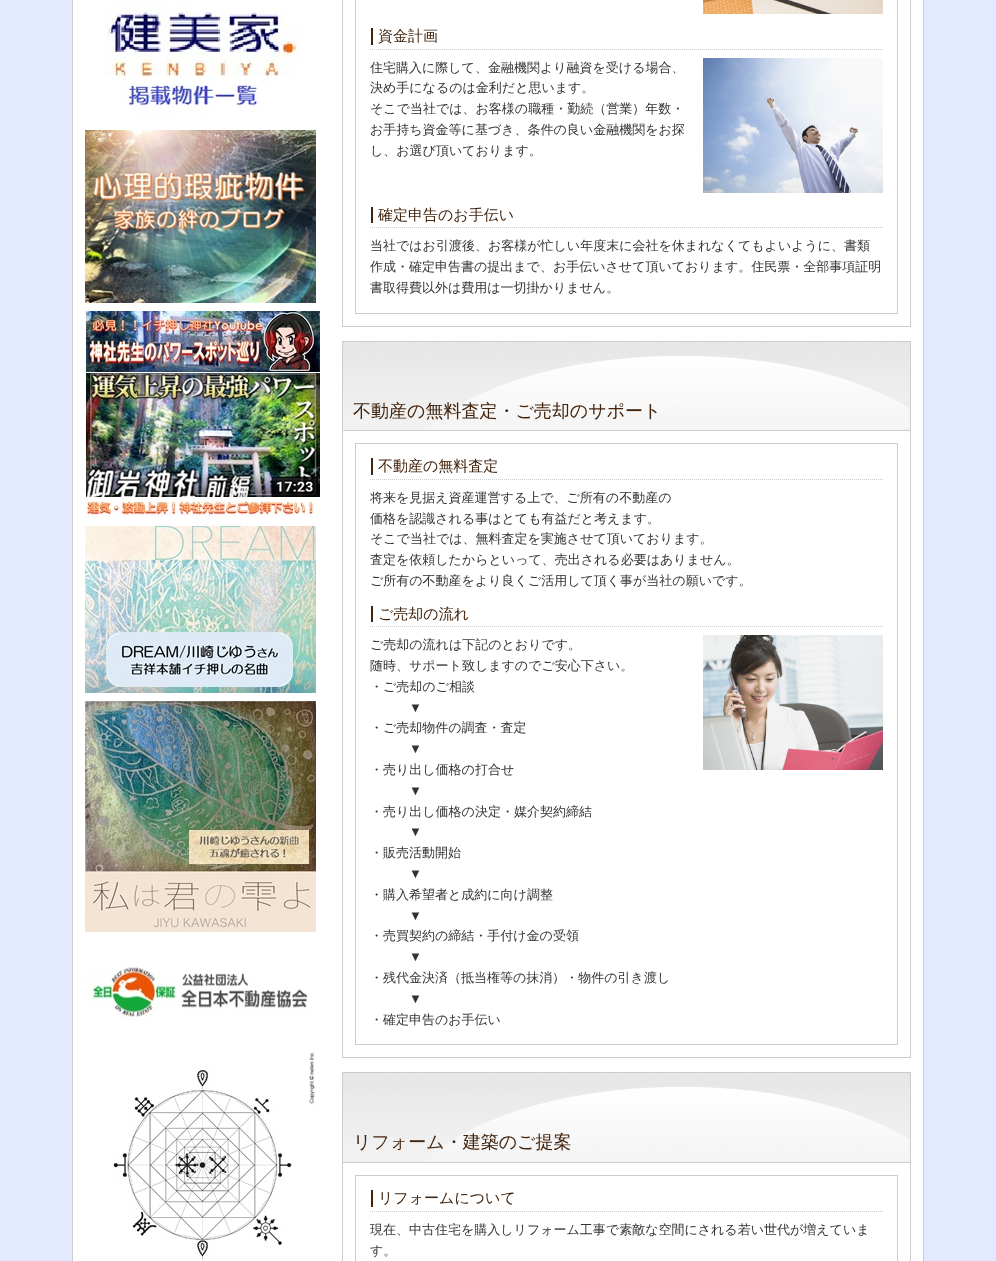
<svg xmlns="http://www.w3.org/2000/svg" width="996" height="1261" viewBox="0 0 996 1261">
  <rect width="100%" height="100%" fill="#e3eaff"/>
  <rect x="73" y="0" width="850" height="1261" fill="#ffffff"/>
  <rect x="923" y="0" width="1" height="1261" fill="#cccccc"/>
  <rect x="72" y="0" width="1" height="1261" fill="#cccccc"/>
  <image x="101" y="4" width="201" height="112" href="img1.png"/>
  <image x="85" y="130" width="231" height="173" href="img2.png"/>
  <image x="85" y="311" width="235" height="207" href="img3.png"/>
  <image x="85" y="526" width="231" height="167" href="img4.png"/>
  <image x="85" y="701" width="231" height="231" href="img5.png"/>
  <image x="85" y="965" width="223" height="55" href="img6.png"/>
  <image x="111" y="1052" width="206" height="208" href="img7.png"/>
  <rect x="342.5" y="-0.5" width="568" height="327" fill="none" stroke="#cccccc"/>
  <rect x="355.5" y="-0.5" width="542" height="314" fill="none" stroke="#cccccc"/>
  <image x="703" y="0" width="180" height="14" href="img8.png"/>
  <path d="M370 49.5H883" fill="none" stroke="#cccccc" stroke-dasharray="1 1"/>
  <rect x="371" y="28" width="2" height="17" fill="#42230c"/>
  <text x="378" y="41" font-family="WenQuanYi Zen Hei" font-size="15" font-weight="500" fill="#42230c">資金計画</text>
  <text x="370" y="72" font-family="WenQuanYi Zen Hei" font-size="13" font-weight="500" fill="#333333">住宅購入に際して、金融機関より融資を受ける場合、</text>
  <text x="370" y="92" font-family="WenQuanYi Zen Hei" font-size="13" font-weight="500" fill="#333333">決め手になるのは金利だと思います。</text>
  <text x="370" y="113" font-family="WenQuanYi Zen Hei" font-size="13" font-weight="500" fill="#333333">そこで当社では、お客様の職種・勤続（営業）年数・</text>
  <text x="370" y="134" font-family="WenQuanYi Zen Hei" font-size="13" font-weight="500" fill="#333333">お手持ち資金等に基づき、条件の良い金融機関をお探</text>
  <text x="370" y="155" font-family="WenQuanYi Zen Hei" font-size="13" font-weight="500" fill="#333333">し、お選び頂いております。</text>
  <image x="703" y="58" width="180" height="135" href="img9.png"/>
  <path d="M370 227.5H883" fill="none" stroke="#cccccc" stroke-dasharray="1 1"/>
  <rect x="371" y="207" width="2" height="16" fill="#42230c"/>
  <text x="378" y="220" font-family="WenQuanYi Zen Hei" font-size="15" font-weight="500" fill="#42230c">確定申告のお手伝い</text>
  <text x="370" y="250" font-family="WenQuanYi Zen Hei" font-size="13" font-weight="500" fill="#333333">当社ではお引渡後、お客様が忙しい年度末に会社を休まれなくてもよいように、書類</text>
  <text x="370" y="271" font-family="WenQuanYi Zen Hei" font-size="13" font-weight="500" fill="#333333">作成・確定申告書の提出まで、お手伝いさせて頂いております。住民票・全部事項証明</text>
  <text x="370" y="292" font-family="WenQuanYi Zen Hei" font-size="13" font-weight="500" fill="#333333">書取得費以外は費用は一切掛かりません。</text>
  <image x="343" y="342" width="567" height="88" href="img10.png"/>
  <rect x="342" y="341" width="569" height="1" fill="#cccccc"/>
  <rect x="910" y="341" width="1" height="89" fill="#cccccc"/>
  <rect x="342" y="341" width="1" height="89" fill="#cccccc"/>
  <text x="353" y="417" font-family="WenQuanYi Zen Hei" font-size="18" font-weight="500" fill="#42230c">不動産の無料査定・ご売却のサポート</text>
  <rect x="342.5" y="430.5" width="568" height="627" fill="none" stroke="#cccccc"/>
  <rect x="355.5" y="443.5" width="542" height="601" fill="none" stroke="#cccccc"/>
  <path d="M370 479.5H883" fill="none" stroke="#cccccc" stroke-dasharray="1 1"/>
  <rect x="371" y="458" width="2" height="17" fill="#42230c"/>
  <text x="378" y="471" font-family="WenQuanYi Zen Hei" font-size="15" font-weight="500" fill="#42230c">不動産の無料査定</text>
  <text x="370" y="502" font-family="WenQuanYi Zen Hei" font-size="13" font-weight="500" fill="#333333">将来を見据え資産運営する上で、ご所有の不動産の</text>
  <text x="370" y="523" font-family="WenQuanYi Zen Hei" font-size="13" font-weight="500" fill="#333333">価格を認識される事はとても有益だと考えます。</text>
  <text x="370" y="543" font-family="WenQuanYi Zen Hei" font-size="13" font-weight="500" fill="#333333">そこで当社では、無料査定を実施させて頂いております。</text>
  <text x="370" y="564" font-family="WenQuanYi Zen Hei" font-size="13" font-weight="500" fill="#333333">査定を依頼したからといって、売出される必要はありません。</text>
  <text x="370" y="585" font-family="WenQuanYi Zen Hei" font-size="13" font-weight="500" fill="#333333">ご所有の不動産をより良くご活用して頂く事が当社の願いです。</text>
  <path d="M370 626.5H883" fill="none" stroke="#cccccc" stroke-dasharray="1 1"/>
  <rect x="371" y="606" width="2" height="16" fill="#42230c"/>
  <text x="378" y="619" font-family="WenQuanYi Zen Hei" font-size="15" font-weight="500" fill="#42230c">ご売却の流れ</text>
  <text x="370" y="649" font-family="WenQuanYi Zen Hei" font-size="13" font-weight="500" fill="#333333">ご売却の流れは下記のとおりです。</text>
  <text x="370" y="670" font-family="WenQuanYi Zen Hei" font-size="13" font-weight="500" fill="#333333">随時、サポート致しますのでご安心下さい。</text>
  <text x="370" y="691" font-family="WenQuanYi Zen Hei" font-size="13" font-weight="500" fill="#333333">・ご売却のご相談</text>
  <text x="409" y="712" font-family="Liberation Sans" font-size="13" fill="#333333">▼</text>
  <text x="370" y="732" font-family="WenQuanYi Zen Hei" font-size="13" font-weight="500" fill="#333333">・ご売却物件の調査・査定</text>
  <text x="409" y="753" font-family="Liberation Sans" font-size="13" fill="#333333">▼</text>
  <text x="370" y="774" font-family="WenQuanYi Zen Hei" font-size="13" font-weight="500" fill="#333333">・売り出し価格の打合せ</text>
  <text x="409" y="795" font-family="Liberation Sans" font-size="13" fill="#333333">▼</text>
  <text x="370" y="816" font-family="WenQuanYi Zen Hei" font-size="13" font-weight="500" fill="#333333">・売り出し価格の決定・媒介契約締結</text>
  <text x="409" y="836" font-family="Liberation Sans" font-size="13" fill="#333333">▼</text>
  <text x="370" y="857" font-family="WenQuanYi Zen Hei" font-size="13" font-weight="500" fill="#333333">・販売活動開始</text>
  <text x="409" y="878" font-family="Liberation Sans" font-size="13" fill="#333333">▼</text>
  <text x="370" y="899" font-family="WenQuanYi Zen Hei" font-size="13" font-weight="500" fill="#333333">・購入希望者と成約に向け調整</text>
  <text x="409" y="920" font-family="Liberation Sans" font-size="13" fill="#333333">▼</text>
  <text x="370" y="940" font-family="WenQuanYi Zen Hei" font-size="13" font-weight="500" fill="#333333">・売買契約の締結・手付け金の受領</text>
  <text x="409" y="961" font-family="Liberation Sans" font-size="13" fill="#333333">▼</text>
  <text x="370" y="982" font-family="WenQuanYi Zen Hei" font-size="13" font-weight="500" fill="#333333">・残代金決済（抵当権等の抹消）・物件の引き渡し</text>
  <text x="409" y="1003" font-family="Liberation Sans" font-size="13" fill="#333333">▼</text>
  <text x="370" y="1024" font-family="WenQuanYi Zen Hei" font-size="13" font-weight="500" fill="#333333">・確定申告のお手伝い</text>
  <image x="703" y="635" width="180" height="135" href="img11.png"/>
  <image x="343" y="1073" width="567" height="89" href="img12.png"/>
  <rect x="342" y="1072" width="569" height="1" fill="#cccccc"/>
  <rect x="910" y="1072" width="1" height="90" fill="#cccccc"/>
  <rect x="342" y="1072" width="1" height="90" fill="#cccccc"/>
  <text x="353" y="1148" font-family="WenQuanYi Zen Hei" font-size="18" font-weight="500" fill="#42230c">リフォーム・建築のご提案</text>
  <rect x="342.5" y="1162.5" width="568" height="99" fill="none" stroke="#cccccc"/>
  <rect x="355.5" y="1175.5" width="542" height="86" fill="none" stroke="#cccccc"/>
  <path d="M370 1211.5H883" fill="none" stroke="#cccccc" stroke-dasharray="1 1"/>
  <rect x="371" y="1190" width="2" height="17" fill="#42230c"/>
  <text x="378" y="1203" font-family="WenQuanYi Zen Hei" font-size="15" font-weight="500" fill="#42230c">リフォームについて</text>
  <text x="370" y="1234" font-family="WenQuanYi Zen Hei" font-size="13" font-weight="500" fill="#333333">現在、中古住宅を購入しリフォーム工事で素敵な空間にされる若い世代が増えていま</text>
  <text x="370" y="1255" font-family="WenQuanYi Zen Hei" font-size="13" font-weight="500" fill="#333333">す。</text>
</svg>
